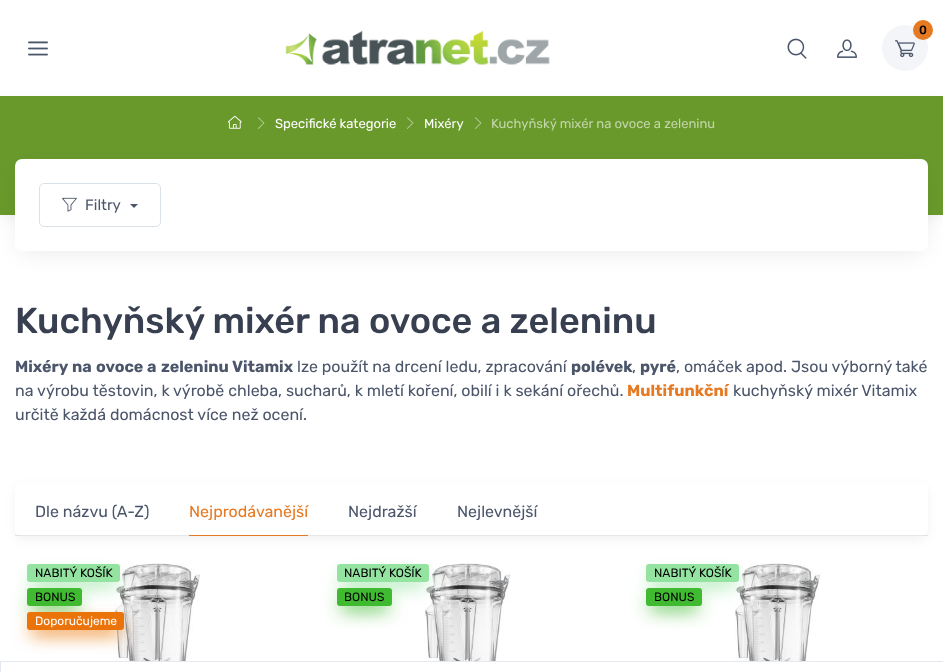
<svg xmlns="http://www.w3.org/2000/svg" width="943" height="672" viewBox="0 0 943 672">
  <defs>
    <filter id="blur1" x="-50%" y="-200%" width="200%" height="500%"><feGaussianBlur stdDeviation="6"/></filter>
    <filter id="blur2" x="-50%" y="-200%" width="200%" height="500%"><feGaussianBlur stdDeviation="12"/></filter>
    <filter id="blur3" x="-50%" y="-200%" width="200%" height="500%"><feGaussianBlur stdDeviation="9"/></filter>
  </defs>
  <rect width="100%" height="100%" fill="#ffffff"/>
  <image x="28" y="41" width="20" height="15" href="img1.png"/>
  <image x="285" y="30" width="265" height="35" href="img2.png"/>
  <circle cx="905" cy="48" r="23" fill="#f3f5f9"/>
  <circle cx="923" cy="30" r="10" fill="#e67a22"/>
  <text x="919" y="34" font-family="Rubik" font-size="12" font-weight="500" fill="#000000">0</text>
  <image x="895" y="40" width="20" height="18" href="img3.png"/>
  <image x="787" y="38" width="20" height="21" href="img4.png"/>
  <image x="837" y="39" width="20" height="19" href="img5.png"/>
  <rect x="1" y="101" width="941" height="117" fill="#000000" fill-opacity="0.06" filter="url(#blur1)"/>
  <rect x="0" y="96" width="943" height="119" fill="#69992b"/>
  <image x="228" y="115" width="14" height="14" href="img6.png"/>
  <image x="258" y="117" width="7" height="12" href="img7.png"/>
  <text x="275" y="128" font-family="Rubik" font-size="13" fill="#ffffff">Specifické kategorie</text>
  <image x="407" y="117" width="7" height="12" href="img7.png"/>
  <text x="424" y="128" font-family="Rubik" font-size="13" fill="#ffffff">Mixéry</text>
  <image x="475" y="117" width="7" height="12" href="img7.png"/>
  <text x="491" y="128" font-family="Rubik" font-size="13" fill="#c3d6aa">Kuchyňský mixér na ovoce a zeleninu</text>
  <rect x="21" y="170" width="901" height="80" rx="1" fill="#000000" fill-opacity="0.1" filter="url(#blur2)"/>
  <rect x="15" y="159" width="913" height="92" rx="7" fill="#ffffff"/>
  <rect x="39.5" y="183.5" width="121" height="43" rx="4.5" fill="none" stroke="#dae1e7"/>
  <image x="62" y="197" width="15" height="15" href="img8.png"/>
  <text x="85" y="210" font-family="Rubik" font-size="15" fill="#4b566b">Filtry</text>
  <path d="M130 204H138L134 208Z" fill="#4b566b"/>
  <text x="15" y="333" font-family="Rubik" font-size="36.1" font-weight="500" fill="#373f50">Kuchyňský mixér na ovoce a zeleninu</text>
  <text x="15" y="372" font-family="Rubik" font-size="16" font-weight="bold" fill="#4b566b">Mixéry</text>
  <text x="72" y="372" font-family="Rubik" font-size="16" font-weight="bold" fill="#4b566b">na</text>
  <text x="96" y="372" font-family="Rubik" font-size="16" font-weight="bold" fill="#4b566b">ovoce</text>
  <text x="147" y="372" font-family="Rubik" font-size="16" font-weight="bold" fill="#4b566b">a</text>
  <text x="161" y="372" font-family="Rubik" font-size="16" font-weight="bold" fill="#4b566b">zeleninu</text>
  <text x="232" y="372" font-family="Rubik" font-size="16" font-weight="bold" fill="#4b566b">Vitamix</text>
  <text x="297" y="372" font-family="Rubik" font-size="16" fill="#4b566b">lze použít na drcení ledu, zpracování</text>
  <text x="571" y="372" font-family="Rubik" font-size="16" font-weight="bold" fill="#4b566b">polévek</text>
  <text x="632" y="372" font-family="Rubik" font-size="16" fill="#4b566b">,</text>
  <text x="640" y="372" font-family="Rubik" font-size="16" font-weight="bold" fill="#4b566b">pyré</text>
  <text x="676" y="372" font-family="Rubik" font-size="16" fill="#4b566b">, omáček apod. Jsou výborný také</text>
  <text x="15" y="396" font-family="Rubik" font-size="16" fill="#4b566b">na výrobu těstovin, k výrobě chleba, sucharů, k mletí koření, obilí i k sekání ořechů.</text>
  <text x="627" y="396" font-family="Rubik" font-size="16" font-weight="bold" fill="#e67a22">Multifunkční</text>
  <text x="733" y="396" font-family="Rubik" font-size="16" fill="#4b566b">kuchyňský mixér Vitamix</text>
  <text x="15" y="420" font-family="Rubik" font-size="16" fill="#4b566b">určitě každá domácnost více než ocení.</text>
  <rect x="16" y="488" width="911" height="51" rx="6" fill="#000000" fill-opacity="0.06" filter="url(#blur1)"/>
  <rect x="15" y="483" width="913" height="53" rx="7" fill="#ffffff"/>
  <rect x="15" y="535" width="913" height="1" fill="#000000" fill-opacity="0.09"/>
  <text x="35" y="517" font-family="Rubik" font-size="16" fill="#4b566b">Dle názvu (A-Z)</text>
  <text x="189" y="517" font-family="Rubik" font-size="16" fill="#e67a22">Nejprodávanější</text>
  <rect x="189" y="535" width="119" height="1" fill="#e67a22"/>
  <text x="348" y="517" font-family="Rubik" font-size="16" fill="#4b566b">Nejdražší</text>
  <text x="457" y="517" font-family="Rubik" font-size="16" fill="#4b566b">Nejlevnější</text>
  <image x="114" y="563" width="86" height="98" href="img9.png"/>
  <rect x="31" y="576" width="85" height="10" fill="#94e3a1" filter="url(#blur3)"/>
  <rect x="27" y="564" width="93" height="18" rx="3" fill="#94e3a1"/>
  <text x="35" y="577" font-family="Rubik" font-size="12" fill="#000000">NABITÝ KOŠÍK</text>
  <rect x="31" y="600" width="47" height="10" fill="#40ba30" filter="url(#blur3)"/>
  <rect x="27" y="588" width="55" height="18" rx="3" fill="#40ba30"/>
  <text x="35" y="601" font-family="Rubik" font-size="12" fill="#000000">BONUS</text>
  <rect x="31" y="624" width="89" height="10" fill="#ea730a" filter="url(#blur3)"/>
  <rect x="27" y="612" width="97" height="18" rx="3" fill="#ea730a"/>
  <text x="35" y="625" font-family="Rubik" font-size="12" fill="#ffffff">Doporučujeme</text>
  <image x="424" y="563" width="87" height="98" href="img10.png"/>
  <rect x="341" y="576" width="84" height="10" fill="#94e3a1" filter="url(#blur3)"/>
  <rect x="337" y="564" width="92" height="18" rx="3" fill="#94e3a1"/>
  <text x="344" y="577" font-family="Rubik" font-size="12" fill="#000000">NABITÝ KOŠÍK</text>
  <rect x="341" y="600" width="47" height="10" fill="#40ba30" filter="url(#blur3)"/>
  <rect x="337" y="588" width="55" height="18" rx="3" fill="#40ba30"/>
  <text x="344" y="601" font-family="Rubik" font-size="12" fill="#000000">BONUS</text>
  <image x="734" y="563" width="86" height="98" href="img11.png"/>
  <rect x="650" y="576" width="85" height="10" fill="#94e3a1" filter="url(#blur3)"/>
  <rect x="646" y="564" width="93" height="18" rx="3" fill="#94e3a1"/>
  <text x="654" y="577" font-family="Rubik" font-size="12" fill="#000000">NABITÝ KOŠÍK</text>
  <rect x="650" y="600" width="48" height="10" fill="#40ba30" filter="url(#blur3)"/>
  <rect x="646" y="588" width="56" height="18" rx="3" fill="#40ba30"/>
  <text x="654" y="601" font-family="Rubik" font-size="12" fill="#000000">BONUS</text>
  <rect x="0" y="661" width="943" height="1" fill="#e3e9ef"/>
  <rect x="0" y="662" width="1" height="10" fill="#e3e9ef"/>
</svg>
